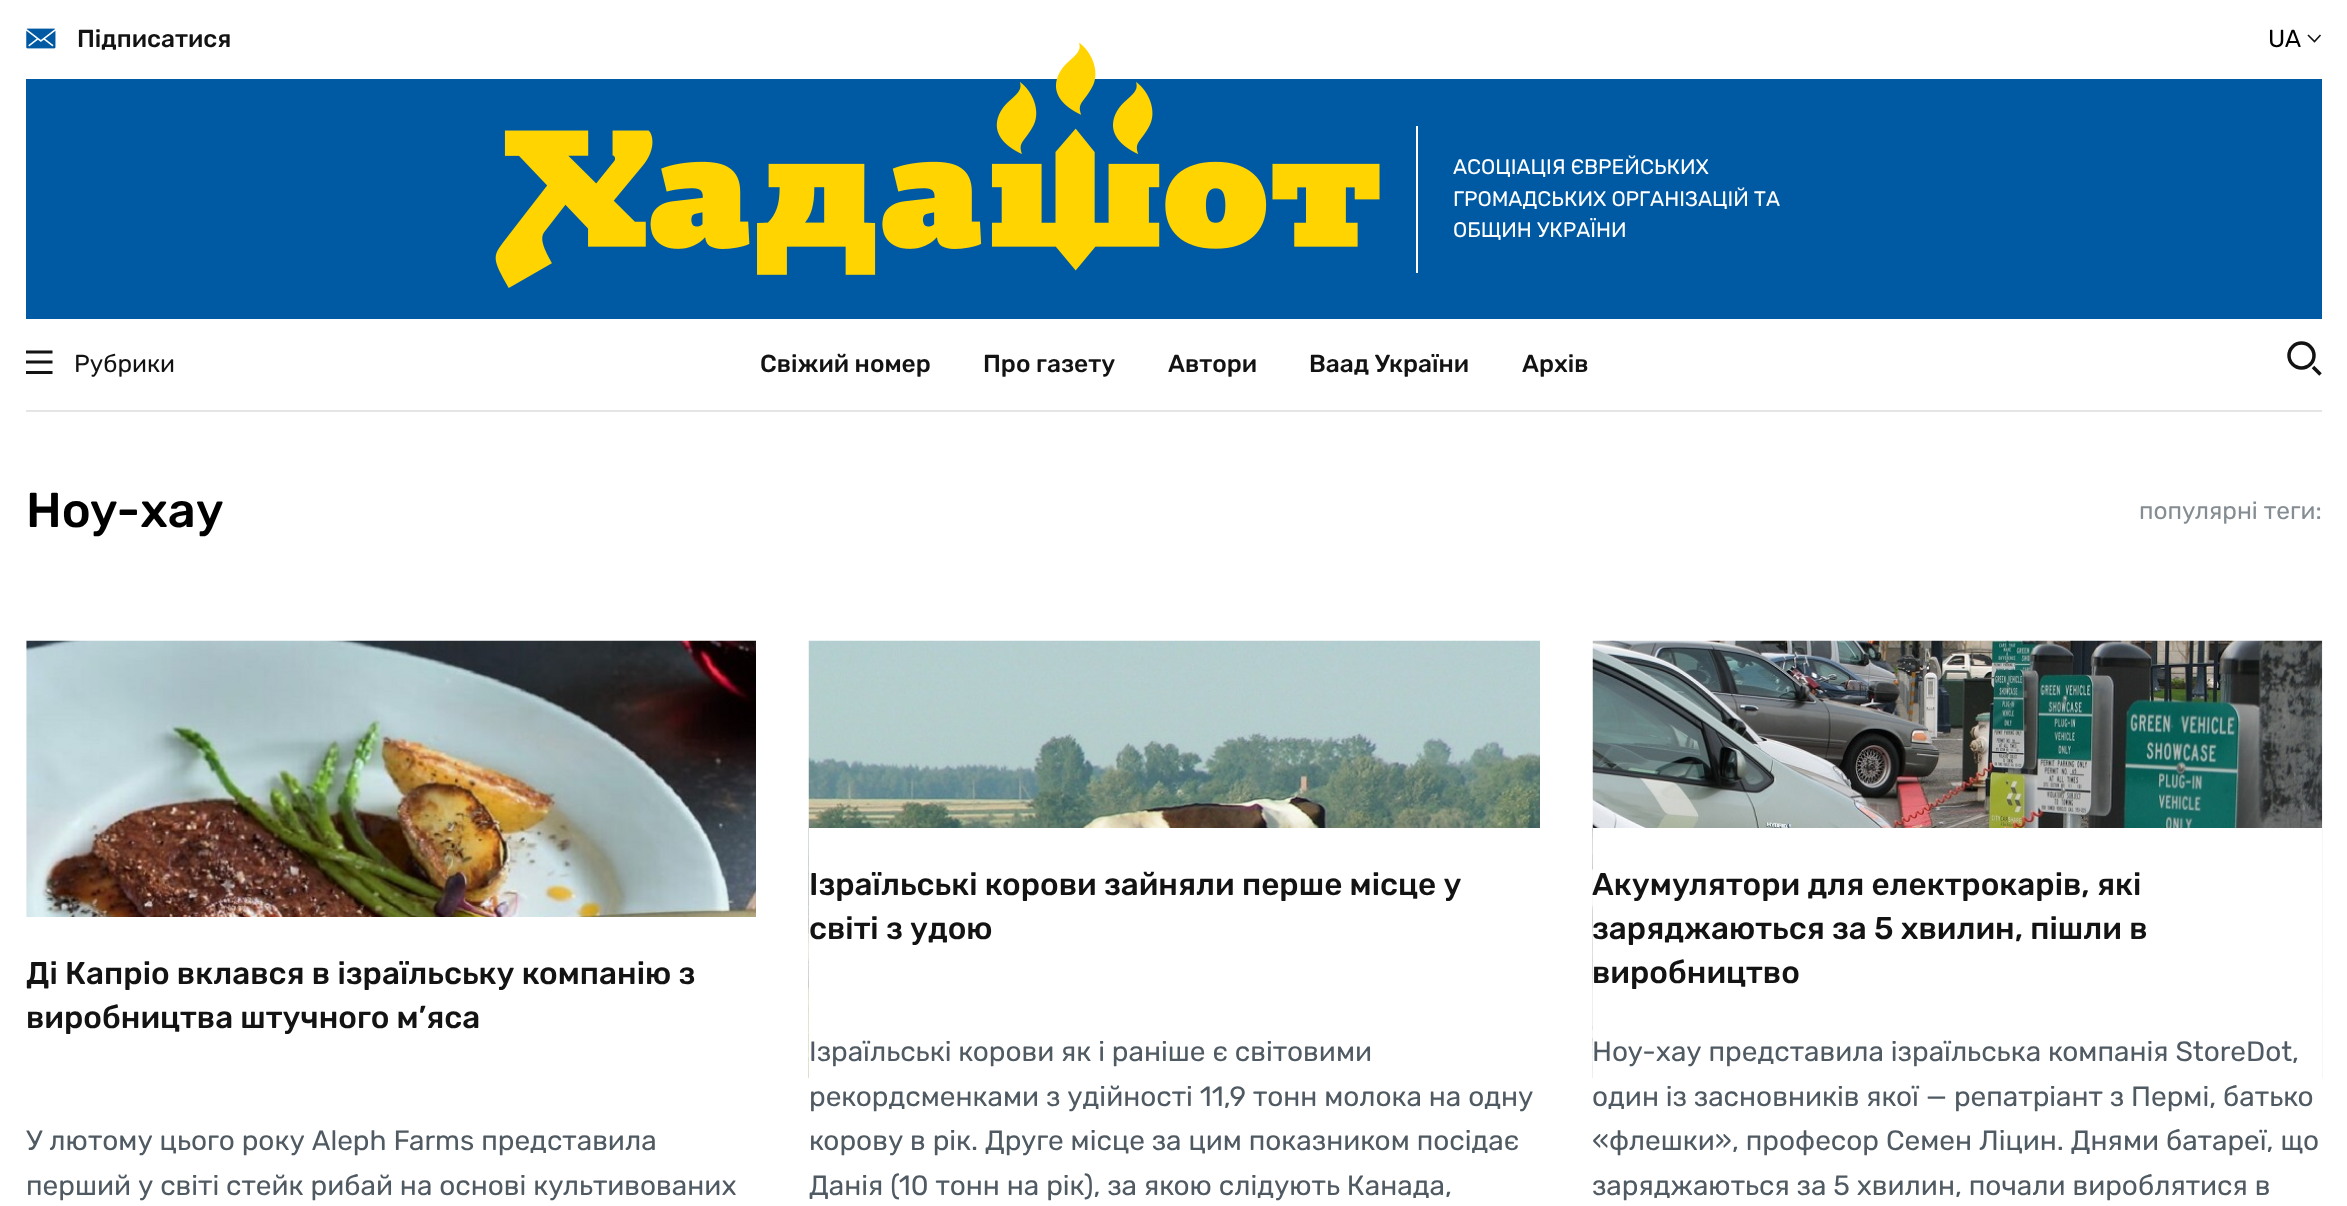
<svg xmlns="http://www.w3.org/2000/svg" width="2347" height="1206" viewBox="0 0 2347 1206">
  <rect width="100%" height="100%" fill="#ffffff"/>
  <image x="26" y="28" width="30" height="21" href="img1.png"/>
  <text x="77" y="47" font-family="Rubik" font-size="24.5" font-weight="500" fill="#131313">Підписатися</text>
  <text x="2268" y="47" font-family="Rubik" font-size="24.5" fill="#000000">UA</text>
  <path d="M2308 35L2314.5 41.5L2320.5 35" fill="none" stroke="#131313" stroke-width="1.6"/>
  <rect x="26" y="79" width="2296" height="240" fill="#005aa3"/>
  <image x="495" y="42" width="885" height="246" href="img2.png"/>
  <rect x="1416" y="126" width="2" height="147" fill="#ffffff"/>
  <text x="1453" y="174" font-family="Rubik" font-size="21" fill="#ffffff">АСОЦІАЦІЯ ЄВРЕЙСЬКИХ</text>
  <text x="1453" y="206" font-family="Rubik" font-size="21" fill="#ffffff">ГРОМАДСЬКИХ ОРГАНІЗАЦІЙ ТА</text>
  <text x="1453" y="237" font-family="Rubik" font-size="21" fill="#ffffff">ОБЩИН УКРАЇНИ</text>
  <rect x="26" y="410" width="2296" height="2" fill="#e5e5e5"/>
  <path d="M52.5 362H26M52.5 352H26M52.5 372.5H26" fill="none" stroke="#131313" stroke-width="2.9"/>
  <text x="74" y="372" font-family="Rubik" font-size="24.5" fill="#131313">Рубрики</text>
  <text x="760" y="372" font-family="Rubik" font-size="24.5" font-weight="500" fill="#131313">Свіжий номер</text>
  <text x="983" y="372" font-family="Rubik" font-size="24.5" font-weight="500" fill="#131313">Про газету</text>
  <text x="1168" y="372" font-family="Rubik" font-size="24.5" font-weight="500" fill="#131313">Автори</text>
  <text x="1309" y="372" font-family="Rubik" font-size="24.5" font-weight="500" fill="#131313">Ваад України</text>
  <text x="1522" y="372" font-family="Rubik" font-size="24.5" font-weight="500" fill="#131313">Архів</text>
  <circle cx="2301.5" cy="355.5" r="12.5" fill="none" stroke="#131313" stroke-width="3.5"/>
  <path d="M2313 367L2320.5 374.5" fill="none" stroke="#131313" stroke-width="3.5"/>
  <text x="26" y="527" font-family="Rubik" font-size="49" font-weight="500" fill="#000000">Ноу-хау</text>
  <text x="2139" y="519" font-family="Rubik" font-size="24.5" fill="#858d93">популярні теги:</text>
  <image x="26" y="640" width="730" height="277" href="img3.png"/>
  <text x="26" y="984" font-family="Rubik" font-size="31.5" font-weight="500" fill="#131313">Ді Капріо вклався в ізраїльську компанію з</text>
  <text x="26" y="1028" font-family="Rubik" font-size="31.5" font-weight="500" fill="#131313">виробництва штучного м’яса</text>
  <text x="26" y="1150" font-family="Rubik" font-size="28" fill="#505a62">У лютому цього року Aleph Farms представила</text>
  <text x="26" y="1195" font-family="Rubik" font-size="28" fill="#505a62">перший у світі стейк рибай на основі культивованих</text>
  <image x="808" y="640" width="732" height="438" href="img4.png"/>
  <rect x="809" y="828" width="731" height="250" fill="#ffffff"/>
  <text x="809" y="895" font-family="Rubik" font-size="31.5" font-weight="500" fill="#131313">Ізраїльські корови зайняли перше місце у</text>
  <text x="809" y="939" font-family="Rubik" font-size="31.5" font-weight="500" fill="#131313">світі з удою</text>
  <text x="809" y="1061" font-family="Rubik" font-size="28" fill="#505a62">Ізраїльські корови як і раніше є світовими</text>
  <text x="809" y="1106" font-family="Rubik" font-size="28" fill="#505a62">рекордсменками з удійності 11,9 тонн молока на одну</text>
  <text x="809" y="1150" font-family="Rubik" font-size="28" fill="#505a62">корову в рік. Друге місце за цим показником посідає</text>
  <text x="809" y="1195" font-family="Rubik" font-size="28" fill="#505a62">Данія (10 тонн на рік), за якою слідують Канада,</text>
  <image x="1592" y="640" width="731" height="438" href="img5.png"/>
  <rect x="1593" y="828" width="729" height="250" fill="#ffffff"/>
  <text x="1592" y="895" font-family="Rubik" font-size="31.5" font-weight="500" fill="#131313">Акумулятори для електрокарів, які</text>
  <text x="1592" y="939" font-family="Rubik" font-size="31.5" font-weight="500" fill="#131313">заряджаються за 5 хвилин, пішли в</text>
  <text x="1592" y="983" font-family="Rubik" font-size="31.5" font-weight="500" fill="#131313">виробництво</text>
  <text x="1592" y="1061" font-family="Rubik" font-size="28" fill="#505a62">Ноу-хау представила ізраїльська компанія StoreDot,</text>
  <text x="1592" y="1106" font-family="Rubik" font-size="28" fill="#505a62">один із засновників якої — репатріант з Пермі, батько</text>
  <text x="1592" y="1150" font-family="Rubik" font-size="28" fill="#505a62">«флешки», професор Семен Ліцин. Днями батареї, що</text>
  <text x="1592" y="1195" font-family="Rubik" font-size="28" fill="#505a62">заряджаються за 5 хвилин, почали вироблятися в</text>
</svg>
